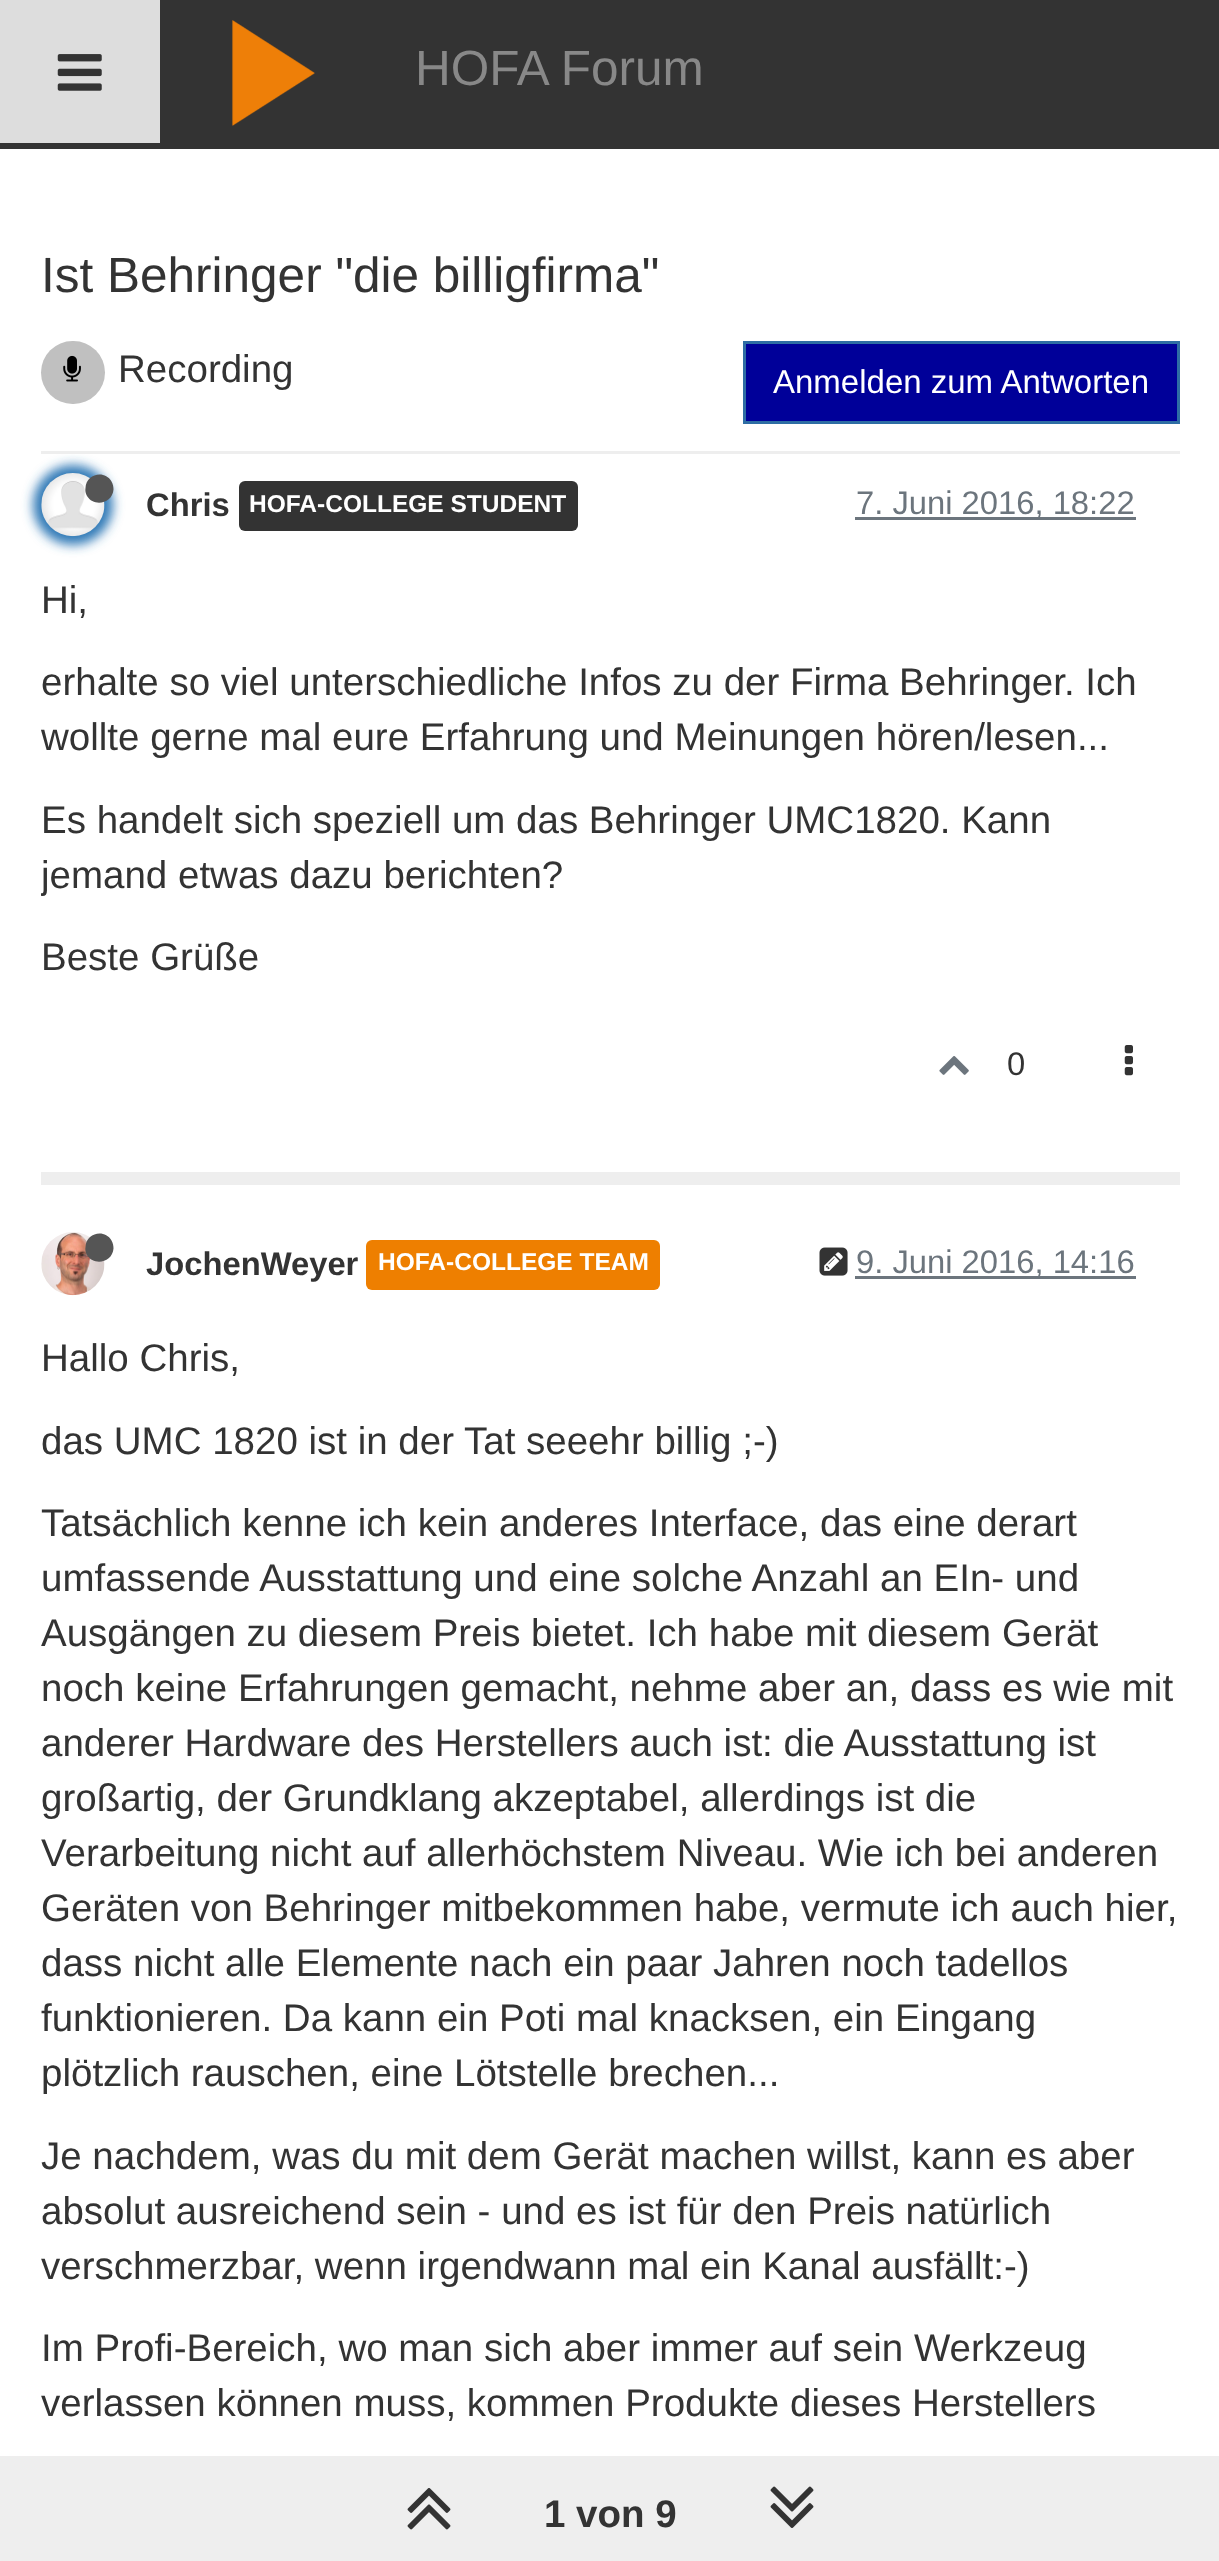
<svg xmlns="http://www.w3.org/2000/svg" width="1219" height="2561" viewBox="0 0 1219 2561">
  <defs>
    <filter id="blur1" x="-50%" y="-200%" width="200%" height="500%"><feGaussianBlur stdDeviation="5.5"/></filter>
    <clipPath id="clip1"><rect x="41" y="572" width="1139" height="443"/></clipPath>
  </defs>
  <rect width="100%" height="100%" fill="#ffffff"/>
  <rect x="0" y="0" width="1219" height="149" fill="#333333"/>
  <rect x="0" y="0" width="160" height="143" fill="#dddddd"/>
  <image x="57" y="54" width="45" height="37" href="img1.png"/>
  <image x="232" y="20" width="83" height="106" href="img2.png"/>
  <text x="415" y="85" font-family="Liberation Sans" font-size="49.5" fill="#888888">HOFA Forum</text>
  <rect x="33" y="465" width="80" height="80" rx="40" fill="#337ab7" filter="url(#blur1)"/>
  <rect x="67" y="453" width="12" height="1" fill="#ffffff"/>
  <text x="41" y="292" font-family="Liberation Sans" font-size="49.5" fill="#333333">Ist Behringer "die billigfirma"</text>
  <rect x="41" y="451" width="1139" height="3" fill="#eeeeee"/>
  <rect x="41" y="341" width="64" height="63" rx="31.5" fill="#c0c0c0"/>
  <image x="63" y="355" width="18" height="27" href="img3.png"/>
  <text x="118" y="382" font-family="Liberation Sans" font-size="38.5" fill="#333333">Recording</text>
  <rect x="744.5" y="342.5" width="434" height="80" fill="#000099" stroke="#2e6da4" stroke-width="3"/>
  <text x="773" y="393" font-family="Liberation Sans" font-size="33" fill="#ffffff">Anmelden zum Antworten</text>
  <rect x="41" y="1172" width="1139" height="13" fill="#eeeeee"/>
  <image x="41" y="473" width="64" height="64" href="img4.png"/>
  <path d="M111.5 481.5C113 484 113.5 487 113.5 489.5C112.5 503.5 94 507.5 87 496C85.5 493.5 85 490.5 85.5 488C86 474 104.5 469.5 111.5 481.5Z" fill="#555555"/>
  <text x="146" y="516" font-family="Liberation Sans" font-size="32.75" font-weight="bold" fill="#333333">Chris</text>
  <rect x="239" y="481" width="339" height="50" rx="6" fill="#333333"/>
  <text x="249" y="512" font-family="Liberation Sans" font-size="24.5" font-weight="bold" fill="#ffffff">HOFA-COLLEGE STUDENT</text>
  <rect x="855" y="517" width="281" height="3" fill="#6c757d"/>
  <text x="856" y="514" font-family="Liberation Sans" font-size="32.75" fill="#6c757d">7. Juni 2016, 18:22</text>
  <text x="41" y="613" font-family="Liberation Sans" font-size="38.5" fill="#333333">Hi,</text>
  <text x="41" y="695" font-family="Liberation Sans" font-size="38.5" fill="#333333">erhalte so viel unterschiedliche Infos zu der Firma Behringer. Ich</text>
  <text x="41" y="750" font-family="Liberation Sans" font-size="38.5" fill="#333333">wollte gerne mal eure Erfahrung und Meinungen hören/lesen...</text>
  <text x="41" y="833" font-family="Liberation Sans" font-size="38.5" fill="#333333">Es handelt sich speziell um das Behringer UMC1820. Kann</text>
  <g clip-path="url(#clip1)">
    <text x="41" y="888" font-family="Liberation Sans" font-size="38.5" fill="#333333">jemand etwas dazu berichten?</text>
  </g>
  <text x="41" y="970" font-family="Liberation Sans" font-size="38.5" fill="#333333">Beste Grüße</text>
  <image x="939" y="1056" width="30" height="19" href="img5.png"/>
  <text x="1007" y="1075" font-family="Liberation Sans" font-size="32.75" fill="#333333">0</text>
  <image x="1124" y="1045" width="9" height="31" href="img6.png"/>
  <image x="41" y="1232" width="64" height="64" href="img7.png"/>
  <path d="M111.5 1240.5C113 1243 113.5 1246 113.5 1248.5C112.5 1262.5 94 1266.5 87 1255C85.5 1252.5 85 1249.5 85.5 1247C86 1233 104.5 1228.5 111.5 1240.5Z" fill="#555555"/>
  <text x="146" y="1275" font-family="Liberation Sans" font-size="32.75" font-weight="bold" fill="#333333">JochenWeyer</text>
  <rect x="366" y="1240" width="294" height="50" rx="6" fill="#ee7f00"/>
  <text x="378" y="1270" font-family="Liberation Sans" font-size="24.5" font-weight="bold" fill="#ffffff">HOFA-COLLEGE TEAM</text>
  <image x="819" y="1247" width="29" height="29" href="img8.png"/>
  <rect x="855" y="1276" width="281" height="3" fill="#6c757d"/>
  <text x="856" y="1273" font-family="Liberation Sans" font-size="32.75" fill="#6c757d">9. Juni 2016, 14:16</text>
  <text x="41" y="1371" font-family="Liberation Sans" font-size="38.5" fill="#333333">Hallo Chris,</text>
  <text x="41" y="1454" font-family="Liberation Sans" font-size="38.5" fill="#333333">das UMC 1820 ist in der Tat seeehr billig ;-)</text>
  <text x="41" y="1536" font-family="Liberation Sans" font-size="38.5" fill="#333333">Tatsächlich kenne ich kein anderes Interface, das eine derart</text>
  <text x="41" y="1591" font-family="Liberation Sans" font-size="38.5" fill="#333333">umfassende Ausstattung und eine solche Anzahl an EIn- und</text>
  <text x="41" y="1646" font-family="Liberation Sans" font-size="38.5" fill="#333333">Ausgängen zu diesem Preis bietet. Ich habe mit diesem Gerät</text>
  <text x="41" y="1701" font-family="Liberation Sans" font-size="38.5" fill="#333333">noch keine Erfahrungen gemacht, nehme aber an, dass es wie mit</text>
  <text x="41" y="1756" font-family="Liberation Sans" font-size="38.5" fill="#333333">anderer Hardware des Herstellers auch ist: die Ausstattung ist</text>
  <text x="41" y="1811" font-family="Liberation Sans" font-size="38.5" fill="#333333">großartig, der Grundklang akzeptabel, allerdings ist die</text>
  <text x="41" y="1866" font-family="Liberation Sans" font-size="38.5" fill="#333333">Verarbeitung nicht auf allerhöchstem Niveau. Wie ich bei anderen</text>
  <text x="41" y="1921" font-family="Liberation Sans" font-size="38.5" fill="#333333">Geräten von Behringer mitbekommen habe, vermute ich auch hier,</text>
  <text x="41" y="1976" font-family="Liberation Sans" font-size="38.5" fill="#333333">dass nicht alle Elemente nach ein paar Jahren noch tadellos</text>
  <text x="41" y="2031" font-family="Liberation Sans" font-size="38.5" fill="#333333">funktionieren. Da kann ein Poti mal knacksen, ein Eingang</text>
  <text x="41" y="2086" font-family="Liberation Sans" font-size="38.5" fill="#333333">plötzlich rauschen, eine Lötstelle brechen...</text>
  <text x="41" y="2169" font-family="Liberation Sans" font-size="38.5" fill="#333333">Je nachdem, was du mit dem Gerät machen willst, kann es aber</text>
  <text x="41" y="2224" font-family="Liberation Sans" font-size="38.5" fill="#333333">absolut ausreichend sein - und es ist für den Preis natürlich</text>
  <text x="41" y="2279" font-family="Liberation Sans" font-size="38.5" fill="#333333">verschmerzbar, wenn irgendwann mal ein Kanal ausfällt:-)</text>
  <text x="41" y="2361" font-family="Liberation Sans" font-size="38.5" fill="#333333">Im Profi-Bereich, wo man sich aber immer auf sein Werkzeug</text>
  <text x="41" y="2416" font-family="Liberation Sans" font-size="38.5" fill="#333333">verlassen können muss, kommen Produkte dieses Herstellers</text>
  <rect x="0" y="2456" width="1219" height="105" fill="#eeeeee"/>
  <image x="407" y="2488" width="44" height="42" href="img9.png"/>
  <text x="544" y="2527" font-family="Liberation Sans" font-size="38.5" font-weight="bold" fill="#333333">1 von 9</text>
  <image x="770" y="2486" width="44" height="42" href="img10.png"/>
</svg>
